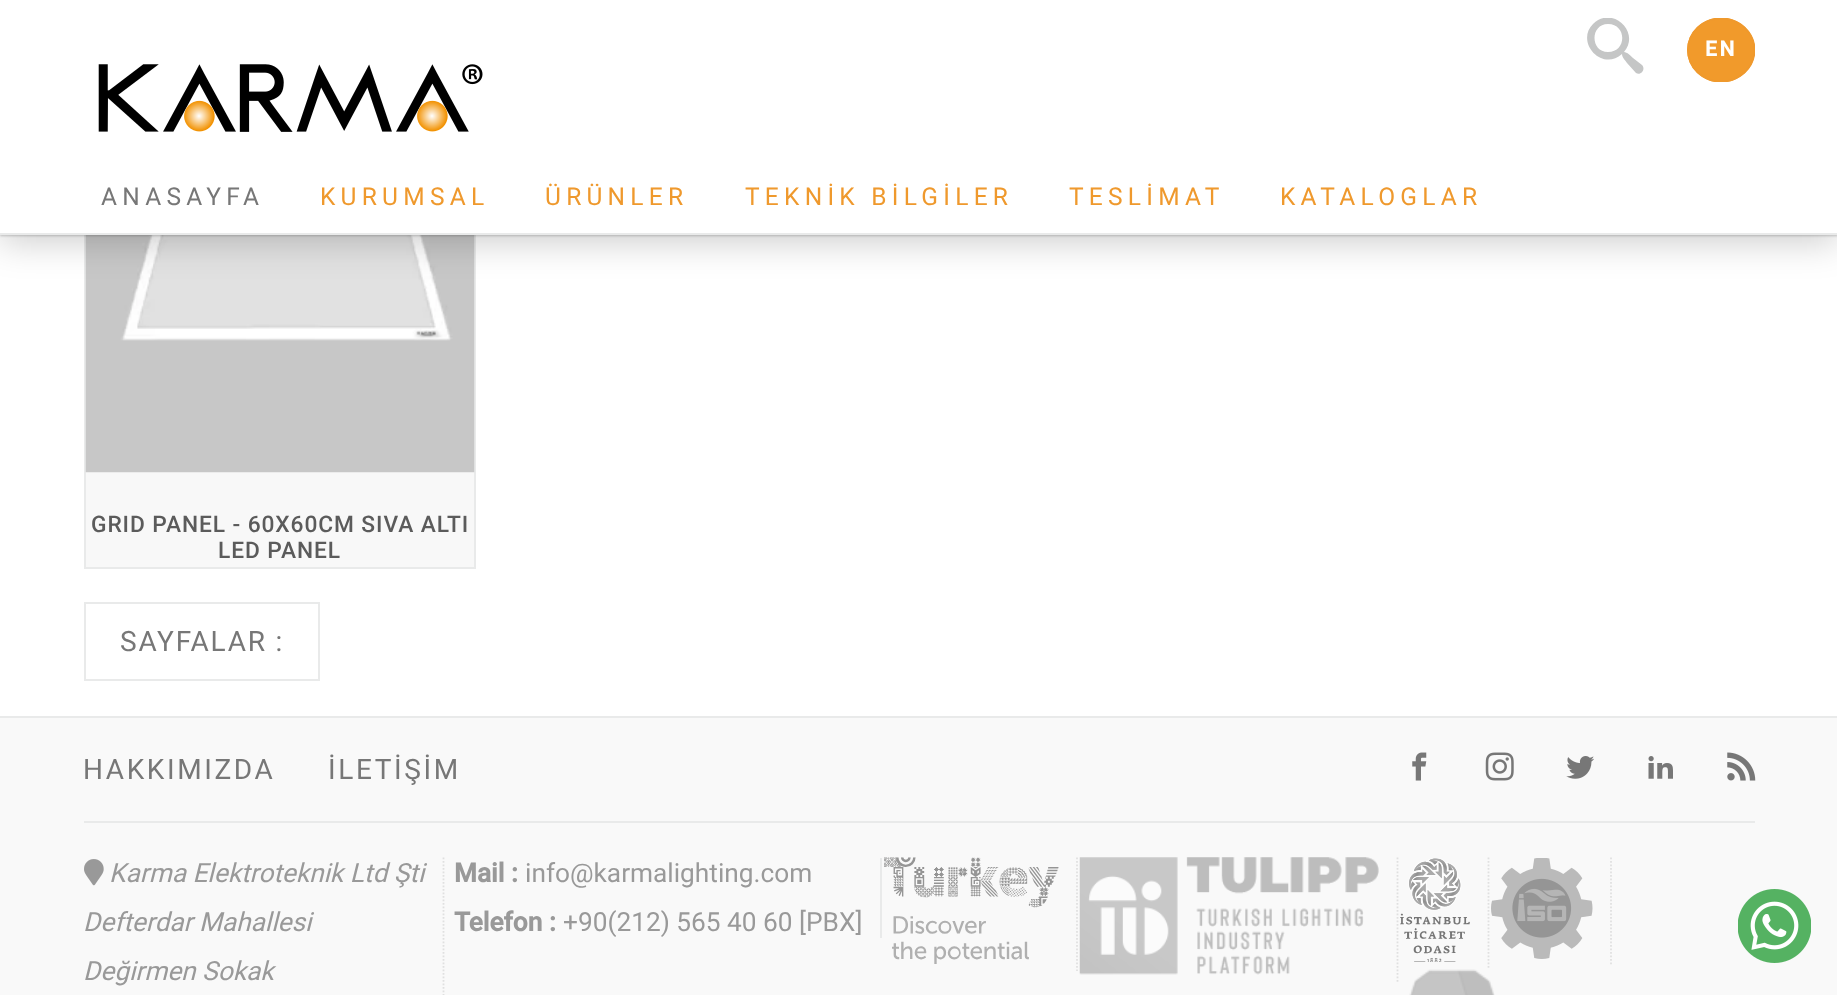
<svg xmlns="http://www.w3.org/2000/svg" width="1837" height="995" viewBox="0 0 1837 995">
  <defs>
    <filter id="blur1" x="-50%" y="-200%" width="200%" height="500%"><feGaussianBlur stdDeviation="17.5"/></filter>
    <filter id="blur2" x="-50%" y="-200%" width="200%" height="500%"><feGaussianBlur stdDeviation="1"/></filter>
    <clipPath id="clip1"><rect x="1545" y="18" width="210" height="64"/></clipPath>
  </defs>
  <rect width="100%" height="100%" fill="#ffffff"/>
  <rect x="86" y="472" width="388" height="95" fill="#f8f8f8"/>
  <rect x="85" y="41" width="390" height="527" fill="none" stroke="#e9eaea" stroke-width="2"/>
  <image x="85" y="235" width="390" height="238" href="img2.png"/>
  <rect x="0" y="9" width="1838" height="234" fill="#000000" fill-opacity="0.19" filter="url(#blur1)"/>
  <rect x="0" y="2" width="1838" height="234" fill="#000000" fill-opacity="0.2" filter="url(#blur2)"/>
  <rect x="0" y="0" width="1837" height="233" fill="#ffffff"/>
  <rect x="0" y="233" width="1837" height="2" fill="#e9eaea"/>
  <g clip-path="url(#clip1)">
    <path d="M1642 65L1633 58C1631 56 1627 52 1624 52C1641 32 1612 5 1593 24C1575 42 1602 72 1622 54C1622 58 1626 61 1627 63L1636 73C1641 76 1646 69 1642 65ZM1608 52C1590 52 1590 24 1608 24C1627 24 1627 52 1608 52Z" fill="#c5c6c6"/>
    <ellipse cx="1721" cy="50" rx="34" ry="32.5" fill="#f19a2b"/>
    <path d="M1721 18.5C1739.5 18.5 1754.5 32.5 1754.5 50C1754.5 67.5 1739.5 81.5 1721 81.5C1703 81.5 1688 67.5 1688 50C1688 32.5 1703 18.5 1721 18.5Z" fill="none" stroke="#ef992d" stroke-width="1.8"/>
  </g>
  <text x="1705" y="56" font-family="Roboto" font-size="21" font-weight="bold" letter-spacing="2.6" fill="#ffffff">EN</text>
  <text x="101" y="205" font-family="Roboto" font-size="24.5" letter-spacing="5.25" fill="#777777">ANASAYFA</text>
  <text x="320" y="205" font-family="Roboto" font-size="24.5" letter-spacing="5.25" fill="#ef992d">KURUMSAL</text>
  <text x="545" y="205" font-family="Roboto" font-size="24.5" letter-spacing="5.25" fill="#ef992d">ÜRÜNLER</text>
  <text x="745" y="205" font-family="Roboto" font-size="24.5" letter-spacing="5.25" fill="#ef992d">TEKNİK BİLGİLER</text>
  <text x="1069" y="205" font-family="Roboto" font-size="24.5" letter-spacing="5.25" fill="#ef992d">TESLİMAT</text>
  <text x="1280" y="205" font-family="Roboto" font-size="24.5" letter-spacing="5.25" fill="#ef992d">KATALOGLAR</text>
  <image x="98" y="64" width="385" height="68" href="img1.png"/>
  <text x="91" y="532" font-family="Roboto" font-size="22.75" font-weight="500" letter-spacing="0.9" fill="#5b5b5b">GRID PANEL - 60X60CM SIVA ALTI</text>
  <text x="218" y="558" font-family="Roboto" font-size="22.75" font-weight="500" letter-spacing="0.9" fill="#5b5b5b">LED PANEL</text>
  <rect x="85" y="603" width="234" height="77" fill="none" stroke="#e9eaea" stroke-width="2"/>
  <text x="120" y="651" font-family="Roboto" font-size="28" letter-spacing="1.75" fill="#777777">SAYFALAR :</text>
  <rect x="0" y="718" width="1837" height="277" fill="#f9f9f9"/>
  <rect x="0" y="716" width="1837" height="2" fill="#e9eaea"/>
  <rect x="84" y="821" width="1671" height="2" fill="#e9eaea"/>
  <text x="83" y="779" font-family="Roboto" font-size="28" letter-spacing="2.6" fill="#777777">HAKKIMIZDA</text>
  <text x="328" y="779" font-family="Roboto" font-size="28" letter-spacing="2.6" fill="#777777">İLETİŞİM</text>
  <image x="1412" y="752" width="15" height="29" href="img3.png"/>
  <image x="1485" y="752" width="29" height="29" href="img4.png"/>
  <image x="1566" y="756" width="28" height="23" href="img5.png"/>
  <image x="1648" y="756" width="25" height="23" href="img6.png"/>
  <image x="1727" y="752" width="29" height="29" href="img7.png"/>
  <path d="M443.5 857.5V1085" fill="none" stroke="#e0e0e0" stroke-width="1.8" stroke-dasharray="1.75 1.75"/>
  <image x="84" y="859" width="20" height="27" href="img8.png"/>
  <text x="109" y="882" font-family="Roboto" font-size="26.25" font-style="italic" fill="#999999">Karma Elektroteknik Ltd Şti</text>
  <text x="83" y="931" font-family="Roboto" font-size="26.25" font-style="italic" fill="#999999">Defterdar Mahallesi</text>
  <text x="83" y="980" font-family="Roboto" font-size="26.25" font-style="italic" fill="#999999">Değirmen Sokak</text>
  <rect x="880" y="858" width="2" height="80" fill="#e9eaea"/>
  <text x="454" y="882" font-family="Roboto" font-size="26.25" font-weight="bold" fill="#999999">Mail :</text>
  <text x="525" y="882" font-family="Roboto" font-size="26.25" fill="#999999">info@karmalighting.com</text>
  <text x="454" y="931" font-family="Roboto" font-size="26.25" font-weight="bold" fill="#999999">Telefon :</text>
  <text x="563" y="931" font-family="Roboto" font-size="26.25" fill="#999999">+90(212) 565 40 60 [PBX]</text>
  <path d="M1077 857.5V971" fill="none" stroke="#e0e0e0" stroke-width="1.8" stroke-dasharray="1.75 1.75"/>
  <image x="884" y="857" width="175" height="107" href="img9.png"/>
  <path d="M1397.5 857.5V982" fill="none" stroke="#e0e0e0" stroke-width="1.8" stroke-dasharray="1.75 1.75"/>
  <image x="1079" y="857" width="300" height="118" href="img10.png"/>
  <path d="M1488.5 857.5V969.5" fill="none" stroke="#e0e0e0" stroke-width="1.8" stroke-dasharray="1.75 1.75"/>
  <image x="1400" y="858" width="70" height="104" href="img11.png"/>
  <path d="M1611 857.5V966" fill="none" stroke="#e0e0e0" stroke-width="1.8" stroke-dasharray="1.75 1.75"/>
  <image x="1491" y="858" width="102" height="101" href="img12.png"/>
  <image x="1409" y="969" width="86" height="26" href="img13.png"/>
  <image x="1738" y="889" width="73" height="74" href="img14.png"/>
</svg>
